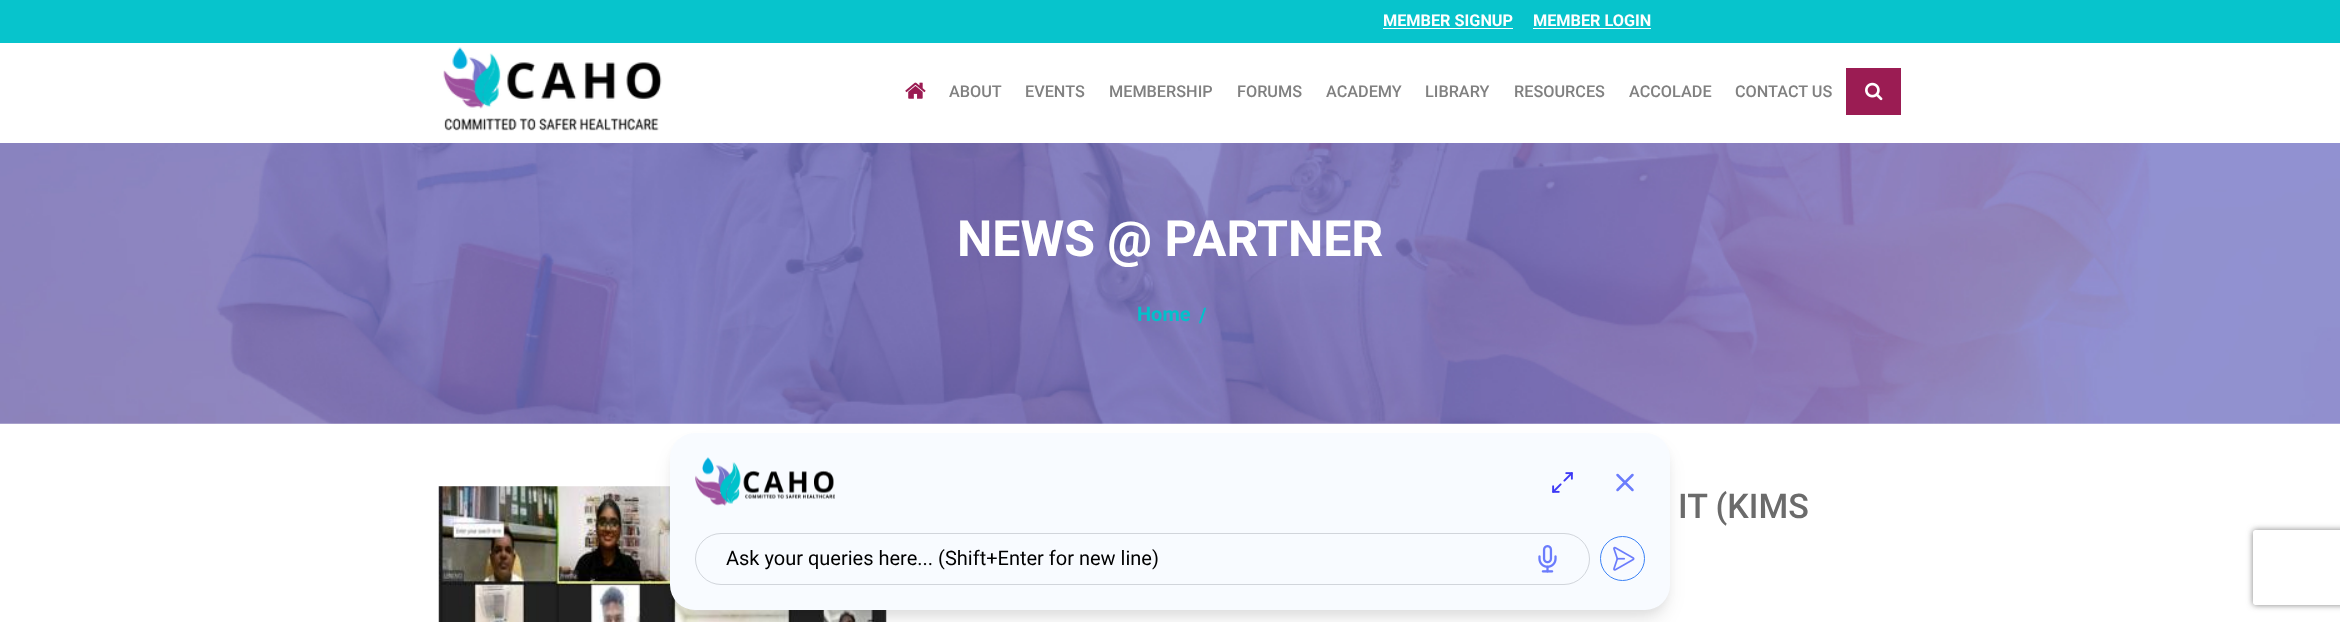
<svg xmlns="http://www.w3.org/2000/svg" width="2340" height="622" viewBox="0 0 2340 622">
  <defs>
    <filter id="blur1" x="-50%" y="-200%" width="200%" height="500%"><feGaussianBlur stdDeviation="4"/></filter>
    <filter id="blur2" x="-50%" y="-200%" width="200%" height="500%"><feGaussianBlur stdDeviation="9.5"/></filter>
    <clipPath id="clip1"><path d="M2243 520H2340V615H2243ZM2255.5 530H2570.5C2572 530 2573 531 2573 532.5V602.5C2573 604 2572 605 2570.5 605H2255.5C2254 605 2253 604 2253 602.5V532.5C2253 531 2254 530 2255.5 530Z" clip-rule="evenodd"/></clipPath>
    <filter id="blur3" x="-50%" y="-200%" width="200%" height="500%"><feGaussianBlur stdDeviation="3"/></filter>
  </defs>
  <rect width="100%" height="100%" fill="#ffffff"/>
  <rect x="0" y="0" width="2340" height="43" fill="#07c4cc"/>
  <text x="1383" y="26" font-family="Roboto" font-size="16.25" font-weight="bold" fill="#ffffff">MEMBER SIGNUP</text>
  <rect x="1383" y="28" width="130" height="1" fill="#ffffff"/>
  <text x="1533" y="26" font-family="Roboto" font-size="16.25" font-weight="bold" fill="#ffffff">MEMBER LOGIN</text>
  <rect x="1533" y="28" width="118" height="1" fill="#ffffff"/>
  <image x="443" y="47" width="219" height="84" href="img1.png"/>
  <image x="905" y="82" width="21" height="17" href="img2.png"/>
  <text x="949" y="97" font-family="Roboto" font-size="16.25" font-weight="500" fill="#808080">ABOUT</text>
  <text x="1025" y="97" font-family="Roboto" font-size="16.25" font-weight="500" fill="#808080">EVENTS</text>
  <text x="1109" y="97" font-family="Roboto" font-size="16.25" font-weight="500" fill="#808080">MEMBERSHIP</text>
  <text x="1237" y="97" font-family="Roboto" font-size="16.25" font-weight="500" fill="#808080">FORUMS</text>
  <text x="1326" y="97" font-family="Roboto" font-size="16.25" font-weight="500" fill="#808080">ACADEMY</text>
  <text x="1425" y="97" font-family="Roboto" font-size="16.25" font-weight="500" fill="#808080">LIBRARY</text>
  <text x="1514" y="97" font-family="Roboto" font-size="16.25" font-weight="500" fill="#808080">RESOURCES</text>
  <text x="1629" y="97" font-family="Roboto" font-size="16.25" font-weight="500" fill="#808080">ACCOLADE</text>
  <text x="1735" y="97" font-family="Roboto" font-size="16.25" font-weight="500" fill="#808080">CONTACT US</text>
  <rect x="1846" y="68" width="55" height="47" fill="#9b1c53"/>
  <image x="1865" y="82" width="18" height="19" href="img3.png"/>
  <image x="0" y="143" width="2340" height="281" href="img4.png"/>
  <text x="957" y="256" font-family="Roboto" font-size="50" font-weight="bold" fill="#ffffff">NEWS @ PARTNER</text>
  <text x="1137" y="321" font-family="Roboto" font-size="20" font-weight="bold" fill="#00c2cb">Home</text>
  <text x="1199" y="322" font-family="Roboto" font-size="20" font-weight="bold" fill="#00c2cb">/</text>
  <image x="438" y="486" width="449" height="136" href="img5.png"/>
  <text x="1678" y="518" font-family="Roboto" font-size="34" font-weight="500" fill="#6b6b6b">IT (KIMS</text>
  <rect x="673" y="440" width="995" height="173" rx="23" fill="#000000" fill-opacity="0.05" filter="url(#blur1)"/>
  <rect x="674" y="449" width="992" height="170" rx="21" fill="#000000" fill-opacity="0.1" filter="url(#blur2)"/>
  <rect x="670" y="433" width="1000" height="177" rx="25" fill="#f8fbff"/>
  <image x="695" y="457" width="140" height="49" href="img6.png"/>
  <image x="1552" y="472" width="21" height="21" href="img7.png"/>
  <path d="M1632.5 475L1617.5 490M1617.5 475L1632.5 490" fill="none" stroke="#6b7cfc" stroke-width="2.5" stroke-linecap="round" stroke-linejoin="round"/>
  <rect x="695.5" y="533.5" width="894" height="51" rx="25.5" fill="none" stroke="#d1d5db"/>
  <text x="726" y="565" font-family="Roboto" font-size="20" fill="#000000">Ask your queries here... (Shift+Enter for new line)</text>
  <image x="1538" y="545" width="19" height="28" href="img8.png"/>
  <circle cx="1622.5" cy="558.5" r="22" fill="none" stroke="#3b82f6"/>
  <image x="1613" y="546" width="22" height="25" href="img9.png"/>
  <g clip-path="url(#clip1)">
    <rect x="2253" y="530" width="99" height="75" rx="2.5" fill="#808080" filter="url(#blur3)"/>
  </g>
</svg>
